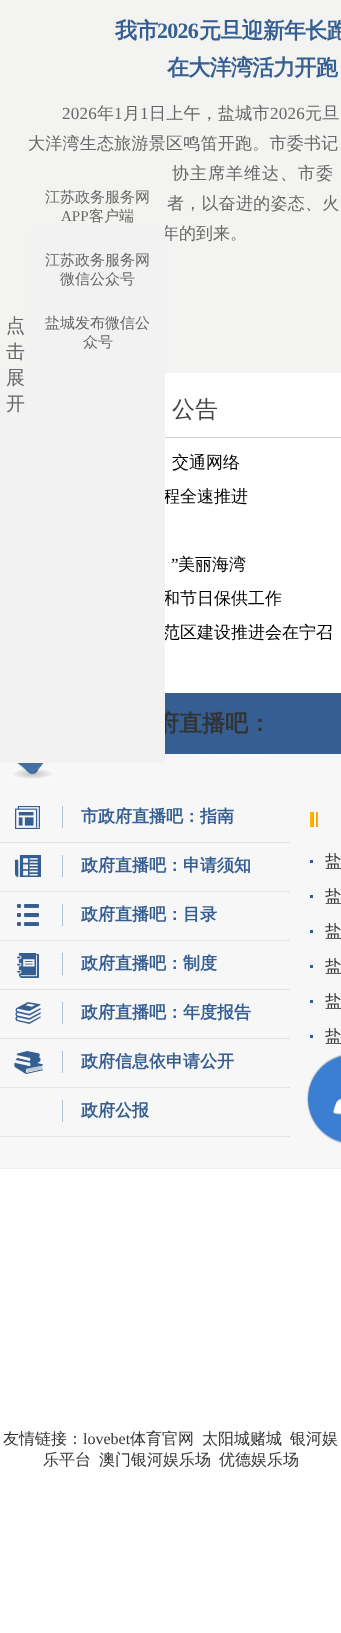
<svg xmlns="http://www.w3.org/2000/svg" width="341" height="1633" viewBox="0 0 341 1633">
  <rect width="100%" height="100%" fill="#ffffff"/>
  <rect x="0" y="0" width="341" height="373" fill="#f3f3f1"/>
  <text x="115" y="38" font-family="WenQuanYi Zen Hei" font-size="22" font-weight="bold" letter-spacing="-0.75" fill="#355e92">我市</text>
  <text x="157" y="38" font-family="Liberation Serif" font-size="22" font-weight="bold" letter-spacing="-0.75" fill="#355e92">2026</text>
  <text x="199" y="38" font-family="WenQuanYi Zen Hei" font-size="22" font-weight="bold" letter-spacing="-0.75" fill="#355e92">元旦迎新年长跑</text>
  <text x="167" y="75" font-family="WenQuanYi Zen Hei" font-size="22" font-weight="bold" letter-spacing="-0.75" fill="#355e92">在大洋湾活力开跑</text>
  <text x="62" y="119" font-family="Liberation Serif" font-size="17" letter-spacing="0.25" fill="#666666">2026</text>
  <text x="97" y="119" font-family="WenQuanYi Zen Hei" font-size="17" font-weight="500" letter-spacing="0.25" fill="#666666">年</text>
  <text x="114" y="119" font-family="Liberation Serif" font-size="17" letter-spacing="0.25" fill="#666666">1</text>
  <text x="123" y="119" font-family="WenQuanYi Zen Hei" font-size="17" font-weight="500" letter-spacing="0.25" fill="#666666">月</text>
  <text x="140" y="119" font-family="Liberation Serif" font-size="17" letter-spacing="0.25" fill="#666666">1</text>
  <text x="149" y="119" font-family="WenQuanYi Zen Hei" font-size="17" font-weight="500" letter-spacing="0.25" fill="#666666">日上午，盐城市</text>
  <text x="270" y="119" font-family="Liberation Serif" font-size="17" letter-spacing="0.25" fill="#666666">2026</text>
  <text x="305" y="119" font-family="WenQuanYi Zen Hei" font-size="17" font-weight="500" letter-spacing="0.25" fill="#666666">元旦</text>
  <text x="28" y="149" font-family="WenQuanYi Zen Hei" font-size="17" font-weight="500" letter-spacing="0.25" fill="#666666">大洋湾生态旅游景区鸣笛开跑。市委书记</text>
  <text x="172" y="179" font-family="WenQuanYi Zen Hei" font-size="17" font-weight="500" letter-spacing="1" fill="#666666">协主席羊维达、市委</text>
  <text x="167" y="209" font-family="WenQuanYi Zen Hei" font-size="17" font-weight="500" letter-spacing="0.25" fill="#666666">者，以奋进的姿态、火</text>
  <text x="162" y="239" font-family="WenQuanYi Zen Hei" font-size="17" font-weight="500" fill="#666666">年的到来。</text>
  <rect x="165" y="437" width="176" height="1" fill="#cfcfcf"/>
  <text x="172" y="417" font-family="WenQuanYi Zen Hei" font-size="23" font-weight="500" fill="#444444">公告</text>
  <text x="172" y="468" font-family="WenQuanYi Zen Hei" font-size="17" font-weight="500" fill="#000000">交通网络</text>
  <text x="163" y="502" font-family="WenQuanYi Zen Hei" font-size="17" font-weight="500" fill="#000000">程全速推进</text>
  <text x="171" y="570" font-family="Liberation Serif" font-size="17" fill="#000000">”</text>
  <text x="178" y="570" font-family="WenQuanYi Zen Hei" font-size="17" font-weight="500" fill="#000000">美丽海湾</text>
  <text x="163" y="604" font-family="WenQuanYi Zen Hei" font-size="17" font-weight="500" fill="#000000">和节日保供工作</text>
  <text x="163" y="638" font-family="WenQuanYi Zen Hei" font-size="17" font-weight="500" fill="#000000">范区建设推进会在宁召</text>
  <rect x="0" y="754" width="341" height="414" fill="#f7f7f7"/>
  <image x="6" y="693" width="335" height="86" href="img1.png"/>
  <text x="156" y="731" font-family="WenQuanYi Zen Hei" font-size="23" font-weight="bold" fill="#333333">府直播吧：</text>
  <rect x="30" y="229" width="135" height="534" fill="#f2f2f2"/>
  <text x="45" y="202" font-family="WenQuanYi Zen Hei" font-size="15" font-weight="500" fill="#666666">江苏政务服务网</text>
  <text x="61" y="221" font-family="Liberation Serif" font-size="15" fill="#666666">APP</text>
  <text x="89" y="221" font-family="WenQuanYi Zen Hei" font-size="15" font-weight="500" fill="#666666">客户端</text>
  <text x="45" y="265" font-family="WenQuanYi Zen Hei" font-size="15" font-weight="500" fill="#666666">江苏政务服务网</text>
  <text x="60" y="284" font-family="WenQuanYi Zen Hei" font-size="15" font-weight="500" fill="#666666">微信公众号</text>
  <text x="45" y="328" font-family="WenQuanYi Zen Hei" font-size="15" font-weight="500" fill="#666666">盐城发布微信公</text>
  <text x="83" y="347" font-family="WenQuanYi Zen Hei" font-size="15" font-weight="500" fill="#666666">众号</text>
  <rect x="0" y="373" width="30" height="390" fill="#f2f2f2"/>
  <text x="6" y="332" font-family="WenQuanYi Zen Hei" font-size="19" font-weight="500" fill="#666666">点</text>
  <text x="6" y="358" font-family="WenQuanYi Zen Hei" font-size="19" font-weight="500" fill="#666666">击</text>
  <text x="6" y="384" font-family="WenQuanYi Zen Hei" font-size="19" font-weight="500" fill="#666666">展</text>
  <text x="6" y="410" font-family="WenQuanYi Zen Hei" font-size="19" font-weight="500" fill="#666666">开</text>
  <rect x="0" y="1168" width="341" height="1" fill="#f1f1f1"/>
  <rect x="0" y="842" width="290" height="1" fill="#e3e3e3"/>
  <image x="15" y="806" width="25" height="23" href="img2.png"/>
  <rect x="62" y="806" width="1" height="22" fill="#b1c0d3"/>
  <text x="81" y="822" font-family="WenQuanYi Zen Hei" font-size="17" font-weight="bold" fill="#355e92">市政府直播吧：指南</text>
  <rect x="0" y="891" width="290" height="1" fill="#e3e3e3"/>
  <image x="15" y="855" width="26" height="22" href="img3.png"/>
  <rect x="62" y="855" width="1" height="22" fill="#b1c0d3"/>
  <text x="81" y="871" font-family="WenQuanYi Zen Hei" font-size="17" font-weight="bold" fill="#355e92">政府直播吧：申请须知</text>
  <rect x="0" y="940" width="290" height="1" fill="#e3e3e3"/>
  <image x="17" y="904" width="22" height="22" href="img4.png"/>
  <rect x="62" y="904" width="1" height="22" fill="#b1c0d3"/>
  <text x="81" y="920" font-family="WenQuanYi Zen Hei" font-size="17" font-weight="bold" fill="#355e92">政府直播吧：目录</text>
  <rect x="0" y="989" width="290" height="1" fill="#e3e3e3"/>
  <image x="17" y="953" width="22" height="25" href="img5.png"/>
  <rect x="62" y="953" width="1" height="22" fill="#b1c0d3"/>
  <text x="81" y="969" font-family="WenQuanYi Zen Hei" font-size="17" font-weight="bold" fill="#355e92">政府直播吧：制度</text>
  <rect x="0" y="1038" width="290" height="1" fill="#e3e3e3"/>
  <image x="15" y="1002" width="26" height="22" href="img6.png"/>
  <rect x="62" y="1002" width="1" height="22" fill="#b1c0d3"/>
  <text x="81" y="1018" font-family="WenQuanYi Zen Hei" font-size="17" font-weight="bold" fill="#355e92">政府直播吧：年度报告</text>
  <rect x="0" y="1087" width="290" height="1" fill="#e3e3e3"/>
  <image x="14" y="1051" width="29" height="23" href="img7.png"/>
  <rect x="62" y="1051" width="1" height="22" fill="#b1c0d3"/>
  <text x="81" y="1067" font-family="WenQuanYi Zen Hei" font-size="17" font-weight="bold" fill="#355e92">政府信息依申请公开</text>
  <rect x="0" y="1136" width="290" height="1" fill="#e3e3e3"/>
  <rect x="62" y="1100" width="1" height="22" fill="#b1c0d3"/>
  <text x="81" y="1116" font-family="WenQuanYi Zen Hei" font-size="17" font-weight="bold" fill="#355e92">政府公报</text>
  <image x="310" y="812" width="8" height="15" href="img8.png"/>
  <rect x="310" y="860" width="3" height="3" fill="#2f5e95"/>
  <text x="325" y="867" font-family="WenQuanYi Zen Hei" font-size="17" font-weight="500" fill="#333333">盐</text>
  <rect x="310" y="895" width="3" height="3" fill="#2f5e95"/>
  <text x="325" y="902" font-family="WenQuanYi Zen Hei" font-size="17" font-weight="500" fill="#333333">盐</text>
  <rect x="310" y="930" width="3" height="3" fill="#2f5e95"/>
  <text x="325" y="937" font-family="WenQuanYi Zen Hei" font-size="17" font-weight="500" fill="#333333">盐</text>
  <rect x="310" y="965" width="3" height="3" fill="#2f5e95"/>
  <text x="325" y="972" font-family="WenQuanYi Zen Hei" font-size="17" font-weight="500" fill="#333333">盐</text>
  <rect x="310" y="1000" width="3" height="3" fill="#2f5e95"/>
  <text x="325" y="1007" font-family="WenQuanYi Zen Hei" font-size="17" font-weight="500" fill="#333333">盐</text>
  <rect x="310" y="1035" width="3" height="3" fill="#2f5e95"/>
  <text x="325" y="1042" font-family="WenQuanYi Zen Hei" font-size="17" font-weight="500" fill="#333333">盐</text>
  <image x="307" y="1054" width="34" height="90" href="img9.png"/>
  <text x="3" y="1444" font-family="WenQuanYi Zen Hei" font-size="16" font-weight="500" fill="#333333">友情链接：</text>
  <text x="83" y="1444" font-family="Liberation Serif" font-size="16" fill="#333333">lovebet</text>
  <text x="130" y="1444" font-family="WenQuanYi Zen Hei" font-size="16" font-weight="500" fill="#333333">体育官网</text>
  <text x="202" y="1444" font-family="WenQuanYi Zen Hei" font-size="16" font-weight="500" fill="#333333">太阳城赌城</text>
  <text x="290" y="1444" font-family="WenQuanYi Zen Hei" font-size="16" font-weight="500" fill="#333333">银河娱</text>
  <text x="43" y="1465" font-family="WenQuanYi Zen Hei" font-size="16" font-weight="500" fill="#333333">乐平台</text>
  <text x="99" y="1465" font-family="WenQuanYi Zen Hei" font-size="16" font-weight="500" fill="#333333">澳门银河娱乐场</text>
  <text x="219" y="1465" font-family="WenQuanYi Zen Hei" font-size="16" font-weight="500" fill="#333333">优德娱乐场</text>
</svg>
